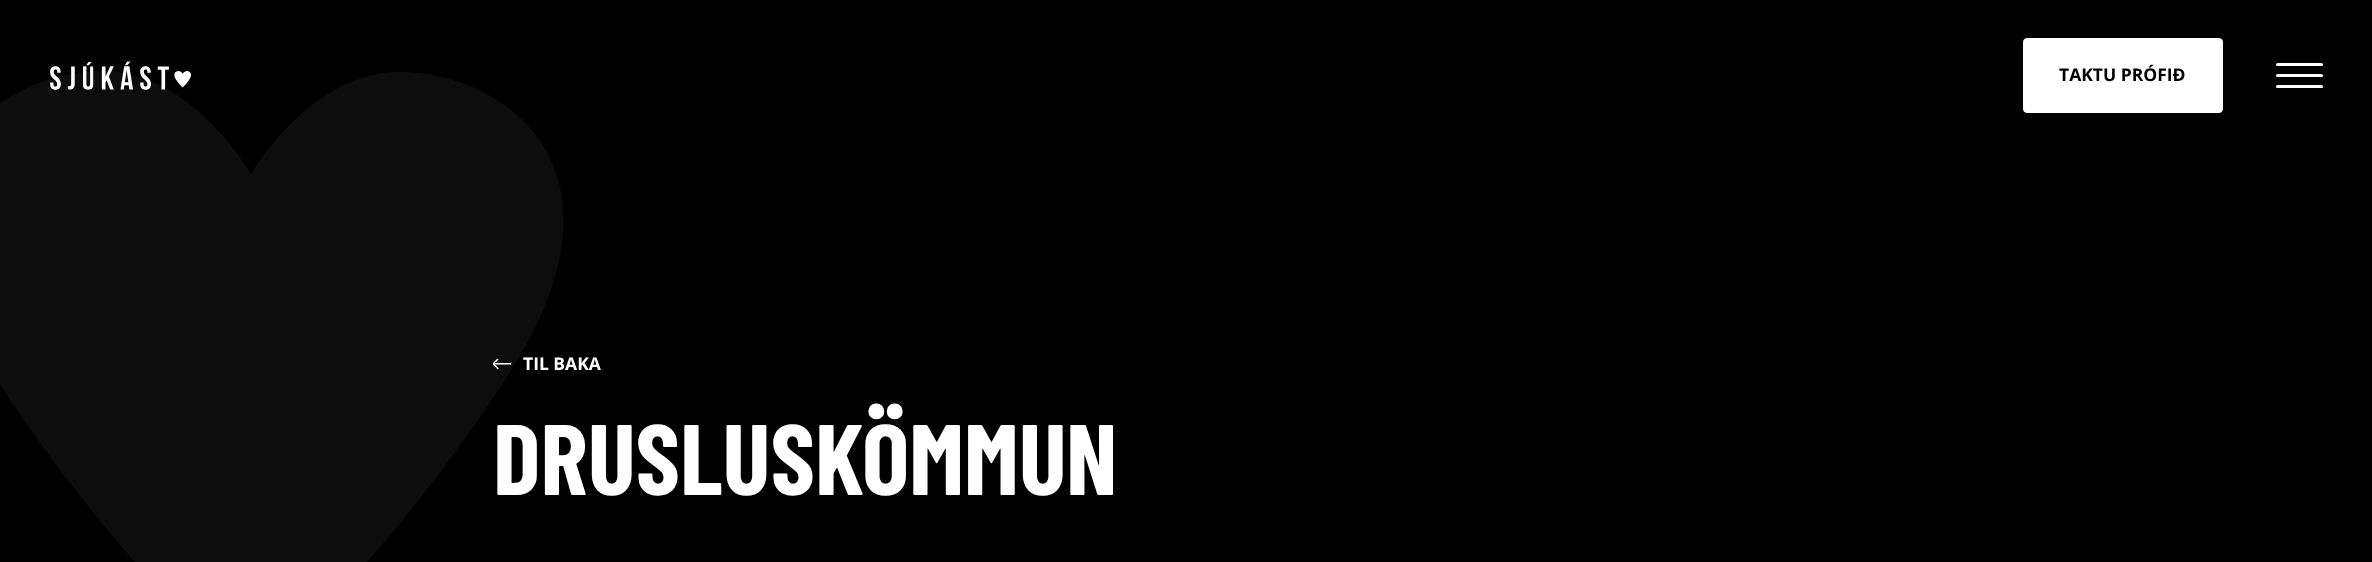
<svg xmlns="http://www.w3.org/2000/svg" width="2372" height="562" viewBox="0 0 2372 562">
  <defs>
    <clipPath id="clip1"><rect x="0" y="71" width="564" height="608"/></clipPath>
  </defs>
  <rect width="100%" height="100%" fill="#000000"/>
  <g clip-path="url(#clip1)">
    <path d="M408 72C315 66 254 169 251 174C248 169 187 65 94 71C-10 78-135 174-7 374C116 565 245 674 251 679C257 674 386 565 509 374C637 174 513 78 408 72Z" fill="#0d0d0d" fill-rule="evenodd"/>
  </g>
  <image x="50" y="61" width="141" height="29" href="img1.png"/>
  <rect x="2023.5" y="38.5" width="199" height="74" rx="3.5" fill="#ffffff" stroke="#ffffff"/>
  <text x="2059" y="81" font-family="Open Sans" font-size="17.5" font-weight="bold" fill="#000000">TAKTU PRÓFIÐ</text>
  <rect x="2276" y="63" width="47" height="3" rx="1.5" fill="#ffffff"/>
  <rect x="2276" y="74" width="47" height="3" rx="1.5" fill="#ffffff"/>
  <rect x="2276" y="85" width="47" height="3" rx="1.5" fill="#ffffff"/>
  <image x="493" y="359" width="18" height="11" href="img2.png"/>
  <text x="523" y="370" font-family="Open Sans" font-size="17.5" font-weight="bold" fill="#ffffff">TIL BAKA</text>
  <text x="493" y="495" font-family="Barlow Condensed" font-size="100" font-weight="bold" fill="#ffffff">DRUSLUSKÖMMUN</text>
</svg>
